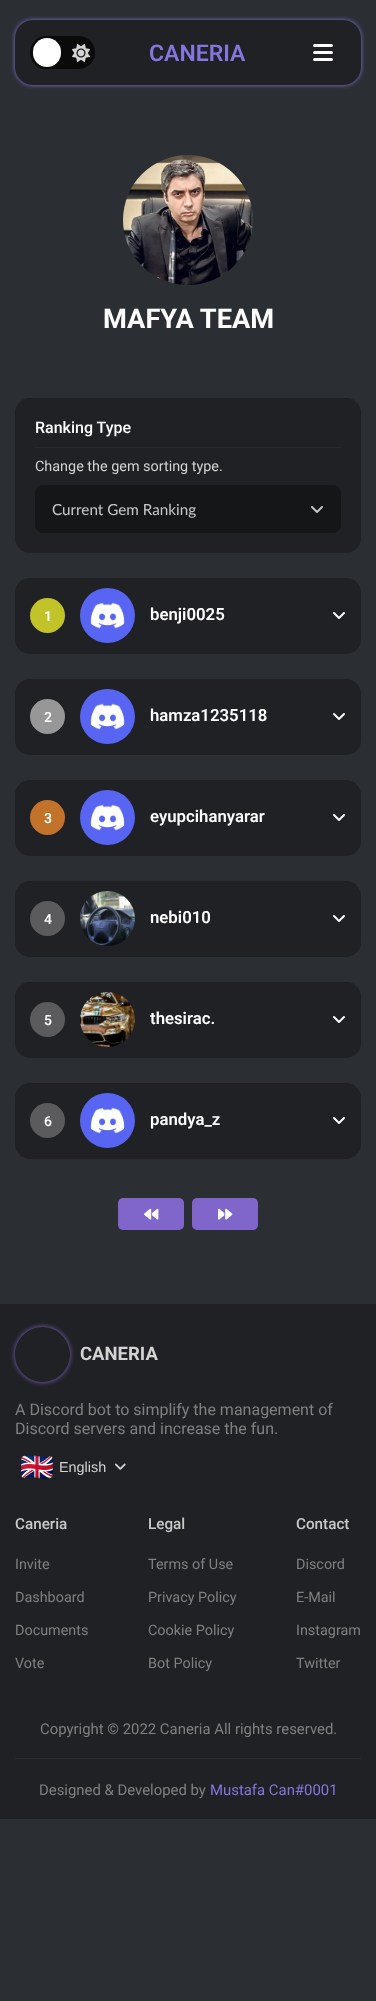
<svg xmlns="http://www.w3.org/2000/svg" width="376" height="2001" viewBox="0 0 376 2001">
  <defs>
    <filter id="blur1" x="-50%" y="-200%" width="200%" height="500%"><feGaussianBlur stdDeviation="2"/></filter>
    <clipPath id="clip1"><path d="M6 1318H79V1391H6ZM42.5 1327C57.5 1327 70 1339.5 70 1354.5C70 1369.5 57.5 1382 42.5 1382C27.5 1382 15 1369.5 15 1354.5C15 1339.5 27.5 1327 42.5 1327Z" clip-rule="evenodd"/></clipPath>
    <filter id="blur2" x="-50%" y="-200%" width="200%" height="500%"><feGaussianBlur stdDeviation="2.5"/></filter>
  </defs>
  <rect width="100%" height="100%" fill="#2b2f33"/>
  <rect x="15" y="20" width="346" height="65" rx="18" fill="#8575df" filter="url(#blur1)"/>
  <rect x="15" y="20" width="346" height="65" rx="18" fill="#1f2124"/>
  <rect x="30" y="36" width="65" height="33" rx="16.5" fill="#0a0a0b"/>
  <rect x="33" y="38" width="28" height="29" rx="14" fill="#ffffff"/>
  <image x="72" y="44" width="18" height="18" href="img1.png"/>
  <text x="149" y="61" font-family="Roboto" font-size="23" font-weight="600" fill="#8575df">CANERIA</text>
  <rect x="313" y="44" width="20" height="3" rx="1.5" fill="#ffffff"/>
  <rect x="313" y="51" width="20" height="3" rx="1.5" fill="#ffffff"/>
  <rect x="313" y="58" width="20" height="3" rx="1.5" fill="#ffffff"/>
  <image x="123" y="155" width="130" height="130" href="img2.png"/>
  <text x="103" y="328" font-family="Roboto" font-size="27.25" font-weight="bold" fill="#ffffff">MAFYA TEAM</text>
  <rect x="15" y="398" width="346" height="155" rx="15" fill="#1f2124"/>
  <rect x="35" y="447" width="306" height="1" fill="#272a2e"/>
  <text x="35" y="433" font-family="Roboto" font-size="16" font-weight="500" fill="#ffffff">Ranking Type</text>
  <text x="35" y="471" font-family="Roboto" font-size="14.4" fill="#d3d3d3">Change the gem sorting type.</text>
  <rect x="35.5" y="485.5" width="305" height="47" rx="7.5" fill="#141618" stroke="#141618"/>
  <text x="52" y="515" font-family="Lato" font-size="15.25" fill="#c9c9c9">Current Gem Ranking</text>
  <image x="311" y="506" width="12" height="7" href="img3.png"/>
  <rect x="15" y="578" width="346" height="76" rx="15" fill="#1f2124"/>
  <circle cx="47.5" cy="615.5" r="17.5" fill="#c2c229"/>
  <text x="44" y="621" font-family="Roboto" font-size="14" font-weight="600" fill="#ffffff">1</text>
  <image x="80" y="588" width="55" height="55" href="img4.png"/>
  <text x="150" y="620" font-family="Roboto" font-size="16.75" font-weight="600" fill="#ffffff">benji0025</text>
  <image x="333" y="612" width="12" height="7" href="img5.png"/>
  <rect x="15" y="679" width="346" height="76" rx="15" fill="#1f2124"/>
  <circle cx="47.5" cy="716.5" r="17.5" fill="#979797"/>
  <text x="44" y="722" font-family="Roboto" font-size="14" font-weight="600" fill="#ffffff">2</text>
  <image x="80" y="689" width="55" height="55" href="img4.png"/>
  <text x="150" y="721" font-family="Roboto" font-size="16.75" font-weight="600" fill="#ffffff">hamza1235118</text>
  <image x="333" y="713" width="12" height="7" href="img5.png"/>
  <rect x="15" y="780" width="346" height="76" rx="15" fill="#1f2124"/>
  <circle cx="47.5" cy="817.5" r="17.5" fill="#c27329"/>
  <text x="44" y="823" font-family="Roboto" font-size="14" font-weight="600" fill="#ffffff">3</text>
  <image x="80" y="790" width="55" height="55" href="img4.png"/>
  <text x="150" y="822" font-family="Roboto" font-size="16.75" font-weight="600" fill="#ffffff">eyupcihanyarar</text>
  <image x="333" y="814" width="12" height="7" href="img5.png"/>
  <rect x="15" y="881" width="346" height="76" rx="15" fill="#1f2124"/>
  <circle cx="47.5" cy="918.5" r="17.5" fill="#5b5b5d"/>
  <text x="44" y="924" font-family="Roboto" font-size="14" font-weight="600" fill="#ffffff">4</text>
  <image x="80" y="891" width="55" height="55" href="img6.png"/>
  <text x="150" y="923" font-family="Roboto" font-size="16.75" font-weight="600" fill="#ffffff">nebi010</text>
  <image x="333" y="915" width="12" height="7" href="img5.png"/>
  <rect x="15" y="982" width="346" height="76" rx="15" fill="#1f2124"/>
  <circle cx="47.5" cy="1019.5" r="17.5" fill="#5b5b5d"/>
  <text x="44" y="1025" font-family="Roboto" font-size="14" font-weight="600" fill="#ffffff">5</text>
  <image x="80" y="992" width="55" height="55" href="img7.png"/>
  <text x="150" y="1024" font-family="Roboto" font-size="16.75" font-weight="600" fill="#ffffff">thesirac.</text>
  <image x="333" y="1016" width="12" height="7" href="img5.png"/>
  <rect x="15" y="1083" width="346" height="76" rx="15" fill="#1f2124"/>
  <circle cx="47.5" cy="1120.5" r="17.5" fill="#5b5b5d"/>
  <text x="44" y="1126" font-family="Roboto" font-size="14" font-weight="600" fill="#ffffff">6</text>
  <image x="80" y="1093" width="55" height="55" href="img4.png"/>
  <text x="150" y="1125" font-family="Roboto" font-size="16.75" font-weight="600" fill="#ffffff">pandya_z</text>
  <image x="333" y="1117" width="12" height="7" href="img5.png"/>
  <rect x="118" y="1198" width="66" height="32" rx="5" fill="#8065ca"/>
  <image x="144" y="1208" width="15" height="12" href="img8.png"/>
  <rect x="192" y="1198" width="66" height="32" rx="5" fill="#8065ca"/>
  <image x="218" y="1208" width="15" height="12" href="img9.png"/>
  <rect x="0" y="1304" width="376" height="515" fill="#1f2124"/>
  <g clip-path="url(#clip1)">
    <rect x="15" y="1327" width="55" height="55" rx="27.5" fill="#8065ca" filter="url(#blur2)"/>
  </g>
  <text x="80" y="1360" font-family="Roboto" font-size="18.5" font-weight="bold" fill="#d3d3d3">CANERIA</text>
  <text x="15" y="1415" font-family="Roboto" font-size="16" fill="#808080">A Discord bot to simplify the management of</text>
  <text x="15" y="1434" font-family="Roboto" font-size="16" fill="#808080">Discord servers and increase the fun.</text>
  <image x="21" y="1455" width="32" height="24" href="img10.png"/>
  <text x="59" y="1472" font-family="Liberation Sans" font-size="14.4" fill="#d3d3d3">English</text>
  <image x="114" y="1463" width="12" height="7" href="img11.png"/>
  <text x="15" y="1529" font-family="Roboto" font-size="15.25" font-weight="500" fill="#c9c9c9">Caneria</text>
  <text x="15" y="1569" font-family="Roboto" font-size="14.4" fill="#808080">Invite</text>
  <text x="15" y="1602" font-family="Roboto" font-size="14.4" fill="#808080">Dashboard</text>
  <text x="15" y="1635" font-family="Roboto" font-size="14.4" fill="#808080">Documents</text>
  <text x="15" y="1668" font-family="Roboto" font-size="14.4" fill="#808080">Vote</text>
  <text x="148" y="1529" font-family="Roboto" font-size="15.25" font-weight="500" fill="#c9c9c9">Legal</text>
  <text x="148" y="1569" font-family="Roboto" font-size="14.4" fill="#808080">Terms of Use</text>
  <text x="148" y="1602" font-family="Roboto" font-size="14.4" fill="#808080">Privacy Policy</text>
  <text x="148" y="1635" font-family="Roboto" font-size="14.4" fill="#808080">Cookie Policy</text>
  <text x="148" y="1668" font-family="Roboto" font-size="14.4" fill="#808080">Bot Policy</text>
  <text x="296" y="1529" font-family="Roboto" font-size="15.25" font-weight="500" fill="#c9c9c9">Contact</text>
  <text x="296" y="1569" font-family="Roboto" font-size="14.4" fill="#808080">Discord</text>
  <text x="296" y="1602" font-family="Roboto" font-size="14.4" fill="#808080">E-Mail</text>
  <text x="296" y="1635" font-family="Roboto" font-size="14.4" fill="#808080">Instagram</text>
  <text x="296" y="1668" font-family="Roboto" font-size="14.4" fill="#808080">Twitter</text>
  <text x="40" y="1734" font-family="Roboto" font-size="14.9" fill="#808080">Copyright © 2022 Caneria All rights reserved.</text>
  <rect x="15" y="1758" width="346" height="1" fill="#2b2f33"/>
  <text x="39" y="1795" font-family="Roboto" font-size="14.9" fill="#808080">Designed &amp; Developed by</text>
  <text x="210" y="1795" font-family="Roboto" font-size="14.9" fill="#8575df">Mustafa Can#0001</text>
</svg>
